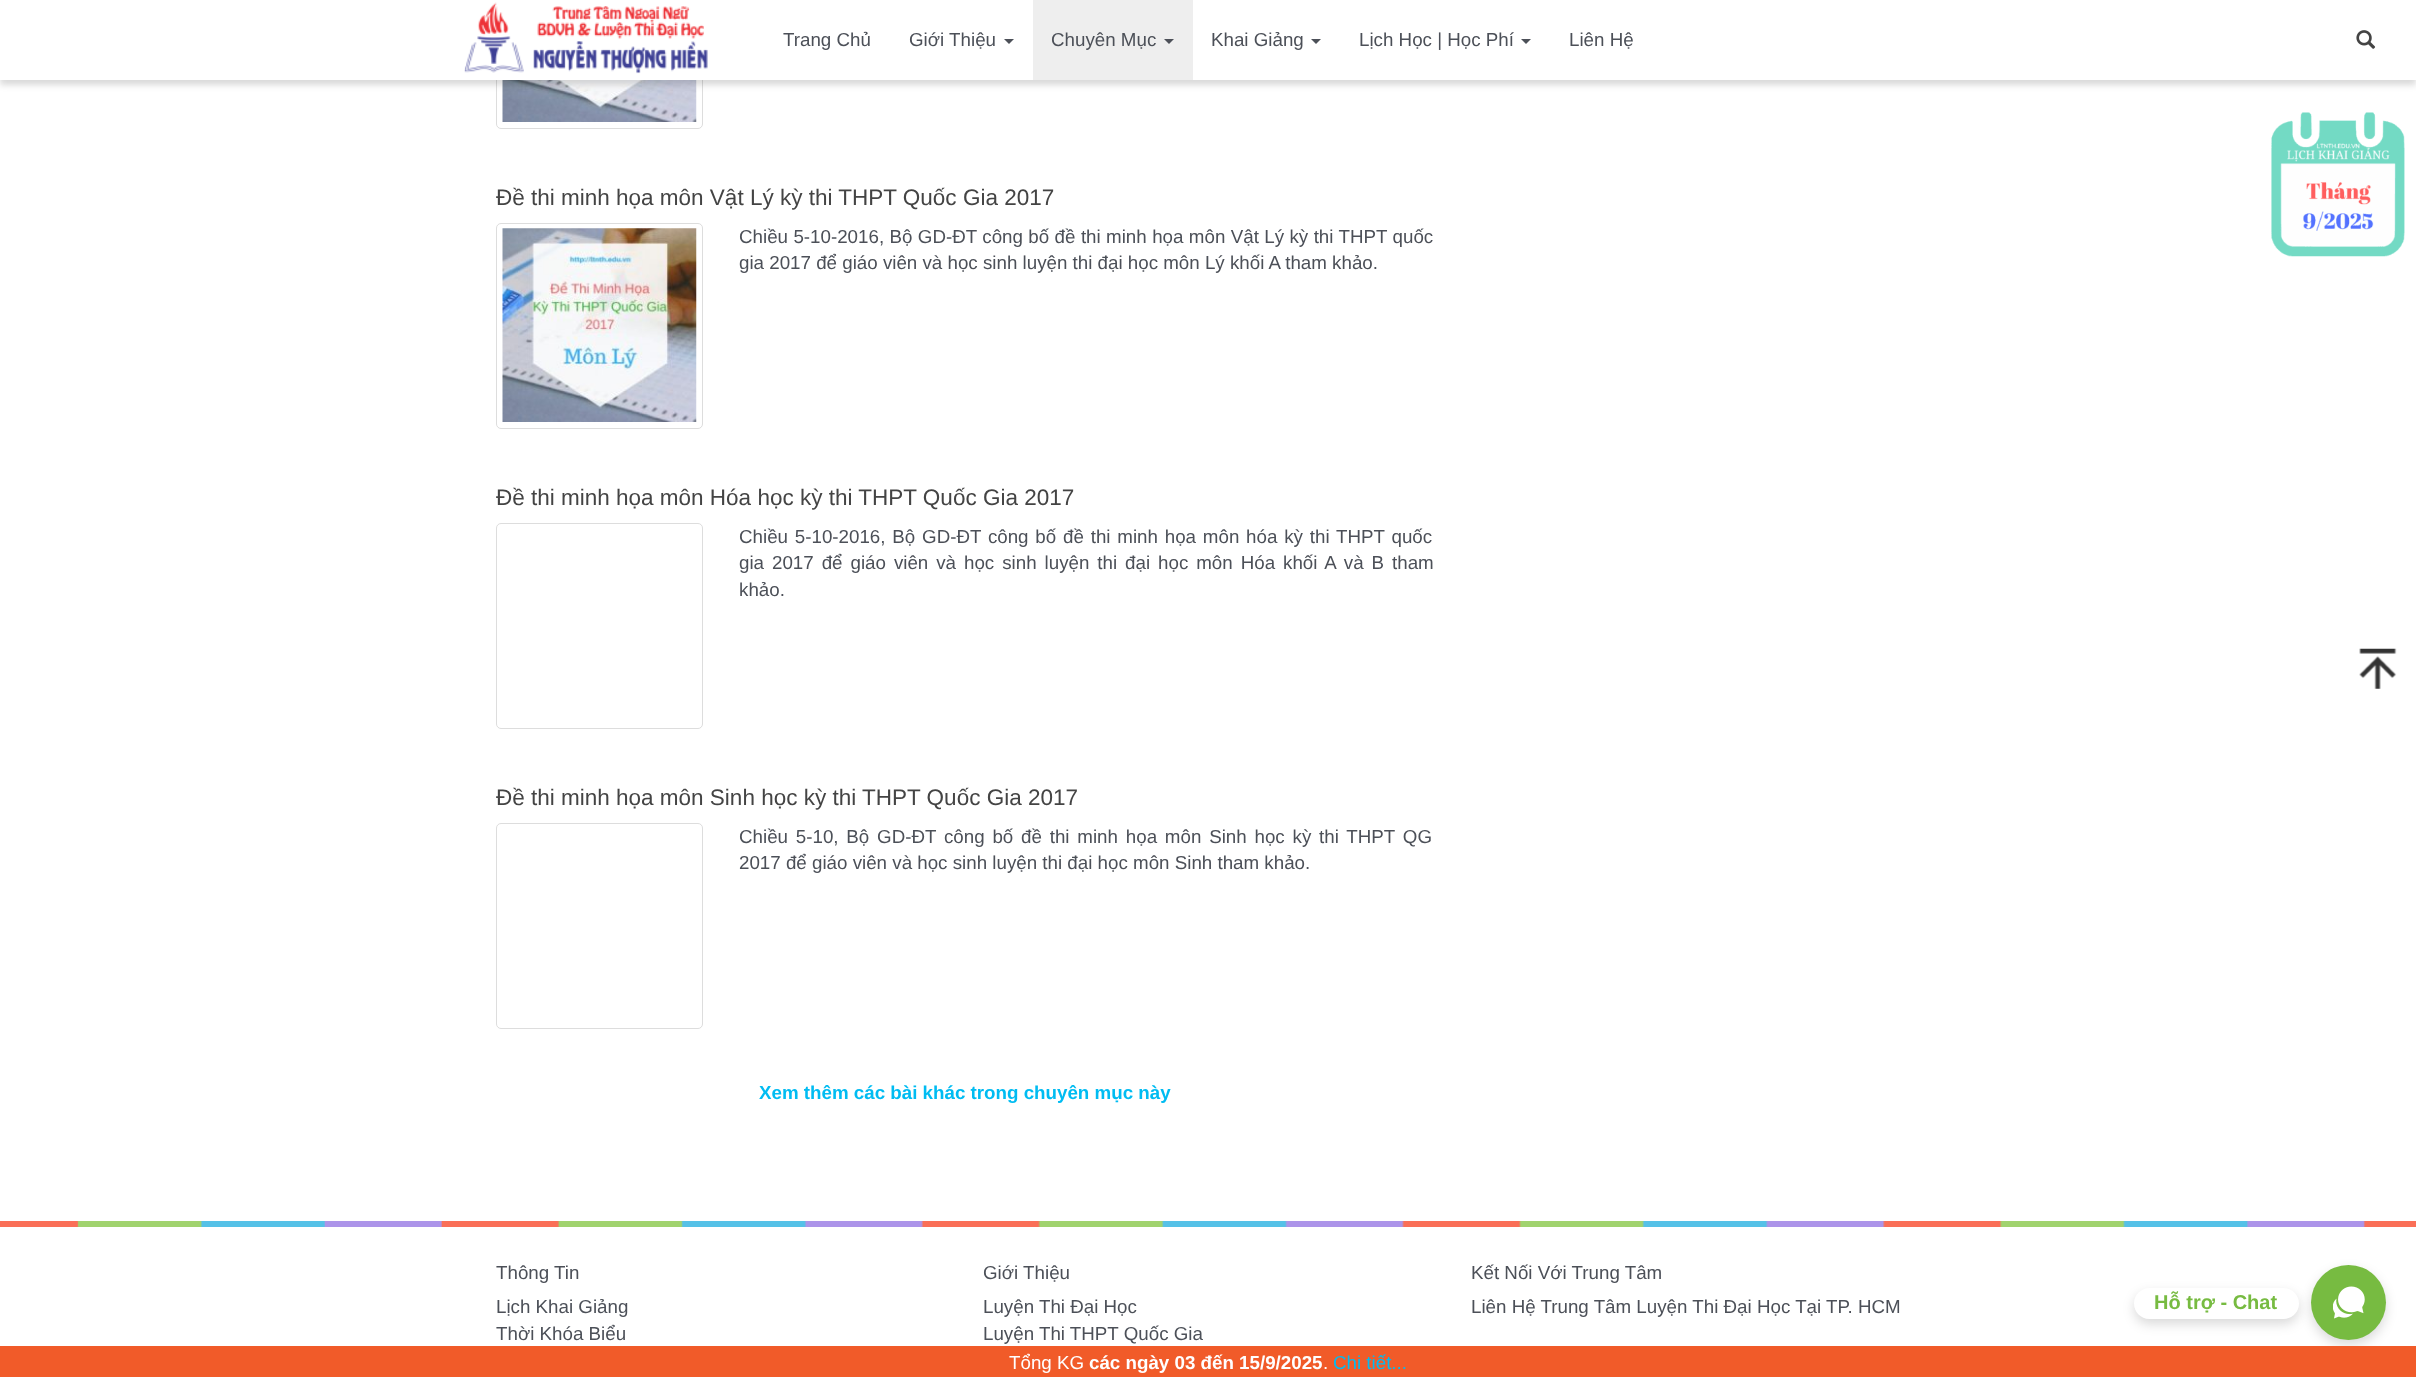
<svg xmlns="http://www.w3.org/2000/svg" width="2416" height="1377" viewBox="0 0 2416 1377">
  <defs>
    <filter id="blur1" x="-50%" y="-200%" width="200%" height="500%"><feGaussianBlur stdDeviation="3"/></filter>
    <filter id="blur2" x="-50%" y="-200%" width="200%" height="500%"><feGaussianBlur stdDeviation="6"/></filter>
    <clipPath id="clip1"><path d="M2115 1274H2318V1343H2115ZM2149.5 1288H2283.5C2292 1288 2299 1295 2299 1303.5C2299 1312 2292 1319 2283.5 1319H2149.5C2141 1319 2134 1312 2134 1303.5C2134 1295 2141 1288 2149.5 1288Z" clip-rule="evenodd"/></clipPath>
  </defs>
  <rect width="100%" height="100%" fill="#ffffff"/>
  <rect x="496.5" y="-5.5" width="206" height="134" rx="4.5" fill="none" stroke="#dddddd"/>
  <image x="502" y="80" width="195" height="42" href="img3.png"/>
  <rect x="0" y="5" width="2416" height="80" fill="#000000" fill-opacity="0.15" filter="url(#blur1)"/>
  <rect x="0" y="0" width="2416" height="80" fill="#ffffff"/>
  <image x="464" y="2" width="244" height="72" href="img1.png"/>
  <image x="2356" y="30" width="20" height="19" href="img2.png"/>
  <text x="783" y="46" font-family="Liberation Sans" font-size="18.75" fill="#4c5058">Trang Chủ</text>
  <text x="909" y="46" font-family="Liberation Sans" font-size="18.75" fill="#4c5058">Giới Thiệu</text>
  <path d="M1004 39H1014L1009 44Z" fill="#4c5058"/>
  <rect x="1033" y="0" width="160" height="80" fill="#eeeeee"/>
  <text x="1051" y="46" font-family="Liberation Sans" font-size="18.75" fill="#4c5058">Chuyên Mục</text>
  <path d="M1164 39H1174L1169 44Z" fill="#4c5058"/>
  <text x="1211" y="46" font-family="Liberation Sans" font-size="18.75" fill="#4c5058">Khai Giảng</text>
  <path d="M1311 39H1321L1316 44Z" fill="#4c5058"/>
  <text x="1359" y="46" font-family="Liberation Sans" font-size="18.75" fill="#4c5058">Lịch Học | Học Phí</text>
  <path d="M1521 39H1531L1526 44Z" fill="#4c5058"/>
  <text x="1569" y="46" font-family="Liberation Sans" font-size="18.75" fill="#4c5058">Liên Hệ</text>
  <text x="496" y="205" font-family="Liberation Sans" font-size="22.5" fill="#444444">Đề thi minh họa môn Vật Lý kỳ thi THPT Quốc Gia 2017</text>
  <rect x="496.5" y="223.5" width="206" height="205" rx="4.5" fill="none" stroke="#dddddd"/>
  <image x="502" y="228" width="195" height="194" href="img4.png"/>
  <text x="739" y="243" word-spacing="0.2" font-family="Liberation Sans" font-size="18.75" fill="#4c5058">Chiều 5-10-2016, Bộ GD-ĐT công bố đề thi minh họa môn Vật Lý kỳ thi THPT quốc</text>
  <text x="739" y="269" font-family="Liberation Sans" font-size="18.75" fill="#4c5058">gia 2017 để giáo viên và học sinh luyện thi đại học môn Lý khối A tham khảo.</text>
  <text x="496" y="505" font-family="Liberation Sans" font-size="22.5" fill="#444444">Đề thi minh họa môn Hóa học kỳ thi THPT Quốc Gia 2017</text>
  <rect x="496.5" y="523.5" width="206" height="205" rx="4.5" fill="none" stroke="#dddddd"/>
  <text x="739" y="543" word-spacing="1.6" font-family="Liberation Sans" font-size="18.75" fill="#4c5058">Chiều 5-10-2016, Bộ GD-ĐT công bố đề thi minh họa môn hóa kỳ thi THPT quốc</text>
  <text x="739" y="569" word-spacing="2.75" font-family="Liberation Sans" font-size="18.75" fill="#4c5058">gia 2017 để giáo viên và học sinh luyện thi đại học môn Hóa khối A và B tham</text>
  <text x="739" y="596" font-family="Liberation Sans" font-size="18.75" fill="#4c5058">khảo.</text>
  <text x="496" y="805" font-family="Liberation Sans" font-size="22.5" fill="#444444">Đề thi minh họa môn Sinh học kỳ thi THPT Quốc Gia 2017</text>
  <rect x="496.5" y="823.5" width="206" height="205" rx="4.5" fill="none" stroke="#dddddd"/>
  <text x="739" y="843" word-spacing="2.6" font-family="Liberation Sans" font-size="18.75" fill="#4c5058">Chiều 5-10, Bộ GD-ĐT công bố đề thi minh họa môn Sinh học kỳ thi THPT QG</text>
  <text x="739" y="869" font-family="Liberation Sans" font-size="18.75" fill="#4c5058">2017 để giáo viên và học sinh luyện thi đại học môn Sinh tham khảo.</text>
  <text x="759" y="1099" font-family="Liberation Sans" font-size="18.75" font-weight="bold" fill="#00bcf2">Xem thêm các bài khác trong chuyên mục này</text>
  <image x="2271" y="112" width="134" height="145" href="img5.png"/>
  <image x="2359" y="648" width="38" height="41" href="img6.png"/>
  <image x="0" y="1221" width="2416" height="6" href="img7.png"/>
  <text x="496" y="1279" font-family="Liberation Sans" font-size="18.75" fill="#4c5058">Thông Tin</text>
  <text x="496" y="1313" font-family="Liberation Sans" font-size="18.75" fill="#4c5058">Lịch Khai Giảng</text>
  <text x="496" y="1340" font-family="Liberation Sans" font-size="18.75" fill="#4c5058">Thời Khóa Biểu</text>
  <text x="983" y="1279" font-family="Liberation Sans" font-size="18.75" fill="#4c5058">Giới Thiệu</text>
  <text x="983" y="1313" font-family="Liberation Sans" font-size="18.75" fill="#4c5058">Luyện Thi Đại Học</text>
  <text x="983" y="1340" font-family="Liberation Sans" font-size="18.75" fill="#4c5058">Luyện Thi THPT Quốc Gia</text>
  <text x="1471" y="1279" font-family="Liberation Sans" font-size="18.75" fill="#4c5058">Kết Nối Với Trung Tâm</text>
  <text x="1471" y="1313" font-family="Liberation Sans" font-size="18.75" fill="#4c5058">Liên Hệ Trung Tâm Luyện Thi Đại Học Tại TP. HCM</text>
  <rect x="2311" y="1270" width="75" height="75" rx="37.5" fill="#000000" fill-opacity="0.15" filter="url(#blur2)"/>
  <circle cx="2348.5" cy="1302.5" r="37.5" fill="#77bb41"/>
  <g clip-path="url(#clip1)">
    <rect x="2134" y="1293" width="165" height="31" rx="15.5" fill="#000000" fill-opacity="0.15" filter="url(#blur2)"/>
  </g>
  <rect x="2134" y="1288" width="165" height="31" rx="15.5" fill="#ffffff" fill-opacity="0.3"/>
  <text x="2154" y="1309" font-family="Liberation Sans" font-size="20" font-weight="bold" fill="#77bb41">Hỗ trợ - Chat</text>
  <image x="2333" y="1286" width="32" height="33" href="img8.png"/>
  <rect x="0" y="1346" width="2416" height="31" fill="#f15b29"/>
  <text x="1009" y="1369" font-family="Liberation Sans" font-size="18.75" fill="#ffffff">Tổng KG</text>
  <text x="1089" y="1369" font-family="Liberation Sans" font-size="18.75" font-weight="bold" fill="#ffffff">các ngày 03 đến 15/9/2025</text>
  <text x="1323" y="1369" font-family="Liberation Sans" font-size="18.75" fill="#ffffff">.</text>
  <text x="1333" y="1369" font-family="Liberation Sans" font-size="18.75" fill="#00bcf2">Chi tiết...</text>
</svg>
